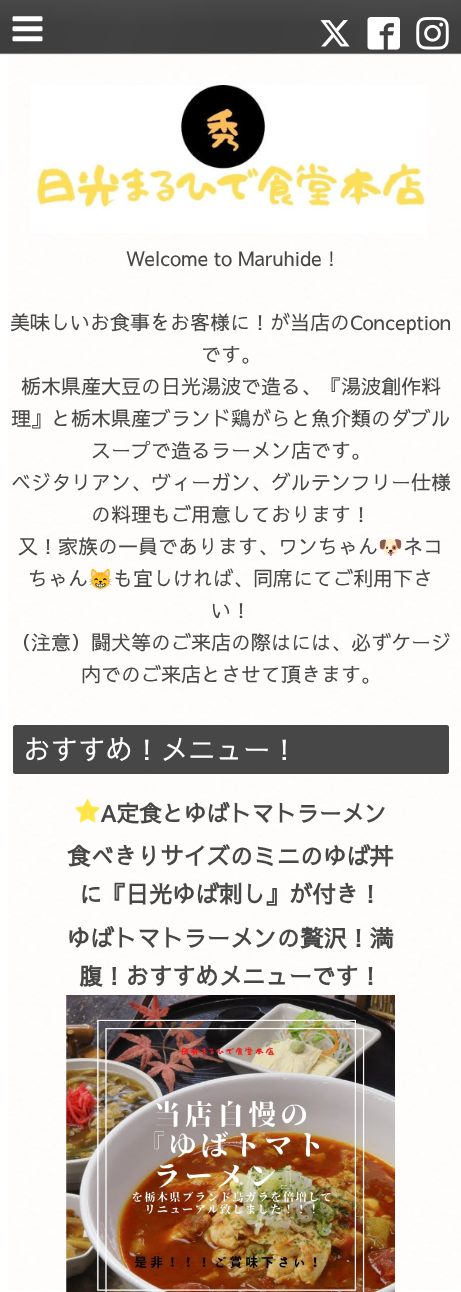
<svg xmlns="http://www.w3.org/2000/svg" width="461" height="1292" viewBox="0 0 461 1292">
  <rect width="100%" height="100%" fill="#ffffff"/>
  <image x="8" y="55" width="453" height="1236" href="img1.png"/>
  <image x="0" y="0" width="461" height="55" href="img2.png"/>
  <image x="12" y="16" width="31" height="26" href="img3.png"/>
  <image x="320" y="20" width="30" height="27" href="img4.png"/>
  <image x="367" y="17" width="33" height="33" href="img5.png"/>
  <image x="416" y="17" width="33" height="33" href="img6.png"/>
  <image x="31" y="85" width="396" height="148" href="img7.png"/>
  <text x="126" y="266" font-family="Sawarabi Gothic" font-size="20" fill="#474747">Welcome to Maruhide !</text>
  <text x="10" y="330" font-family="Sawarabi Gothic" font-size="20" fill="#474747">美味しいお食事をお客様に！が当店のConception</text>
  <text x="201" y="362" font-family="Sawarabi Gothic" font-size="20" fill="#474747">です。</text>
  <text x="21" y="394" font-family="Sawarabi Gothic" font-size="20" fill="#474747">栃木県産大豆の日光湯波で造る、『湯波創作料</text>
  <text x="11" y="426" font-family="Sawarabi Gothic" font-size="20" fill="#474747">理』と栃木県産ブランド鶏がらと魚介類のダブル</text>
  <text x="91" y="458" font-family="Sawarabi Gothic" font-size="20" fill="#474747">スープで造るラーメン店です。</text>
  <text x="11" y="490" font-family="Sawarabi Gothic" font-size="20" fill="#474747">ベジタリアン、ヴィーガン、グルテンフリー仕様</text>
  <text x="91" y="522" font-family="Sawarabi Gothic" font-size="20" fill="#474747">の料理もご用意しております！</text>
  <text x="18" y="554" font-family="Sawarabi Gothic" font-size="20" fill="#474747">又！家族の一員であります、ワンちゃん</text>
  <text x="378" y="554" font-family="Noto Color Emoji" font-size="20" fill="#474747">🐶</text>
  <text x="403" y="554" font-family="Sawarabi Gothic" font-size="20" fill="#474747">ネコ</text>
  <text x="28" y="586" font-family="Sawarabi Gothic" font-size="20" fill="#474747">ちゃん</text>
  <text x="88" y="586" font-family="Noto Color Emoji" font-size="20" fill="#474747">😸</text>
  <text x="113" y="586" font-family="Sawarabi Gothic" font-size="20" fill="#474747">も宜しければ、同席にてご利用下さ</text>
  <text x="211" y="618" font-family="Sawarabi Gothic" font-size="20" fill="#474747">い！</text>
  <text x="11" y="650" font-family="Sawarabi Gothic" font-size="20" fill="#474747">（注意）闘犬等のご来店の際はには、必ずケージ</text>
  <text x="81" y="682" font-family="Sawarabi Gothic" font-size="20" fill="#474747">内でのご来店とさせて頂きます。</text>
  <rect x="13" y="725" width="436" height="49" rx="2.5" fill="#474747"/>
  <text x="23" y="760" font-family="Sawarabi Gothic" font-size="27.5" fill="#ffffff">おすすめ！メニュー！</text>
  <image x="75" y="798" width="25" height="25" href="img8.png"/>
  <text x="100" y="822" font-family="Sawarabi Gothic" font-size="22.5" font-weight="bold" fill="#474747">A定食とゆばトマトラーメン</text>
  <text x="67" y="865" font-family="Sawarabi Gothic" font-size="23.3" font-weight="bold" fill="#474747">食べきりサイズのミニのゆば丼</text>
  <text x="79" y="903" font-family="Sawarabi Gothic" font-size="23.3" font-weight="bold" fill="#474747">に『日光ゆば刺し』が付き！</text>
  <text x="67" y="947" font-family="Sawarabi Gothic" font-size="23.3" font-weight="bold" fill="#474747">ゆばトマトラーメンの贅沢！満</text>
  <text x="79" y="985" font-family="Sawarabi Gothic" font-size="23.3" font-weight="bold" fill="#474747">腹！おすすめメニューです！</text>
  <image x="66" y="995" width="329" height="297" href="img9.png"/>
</svg>
